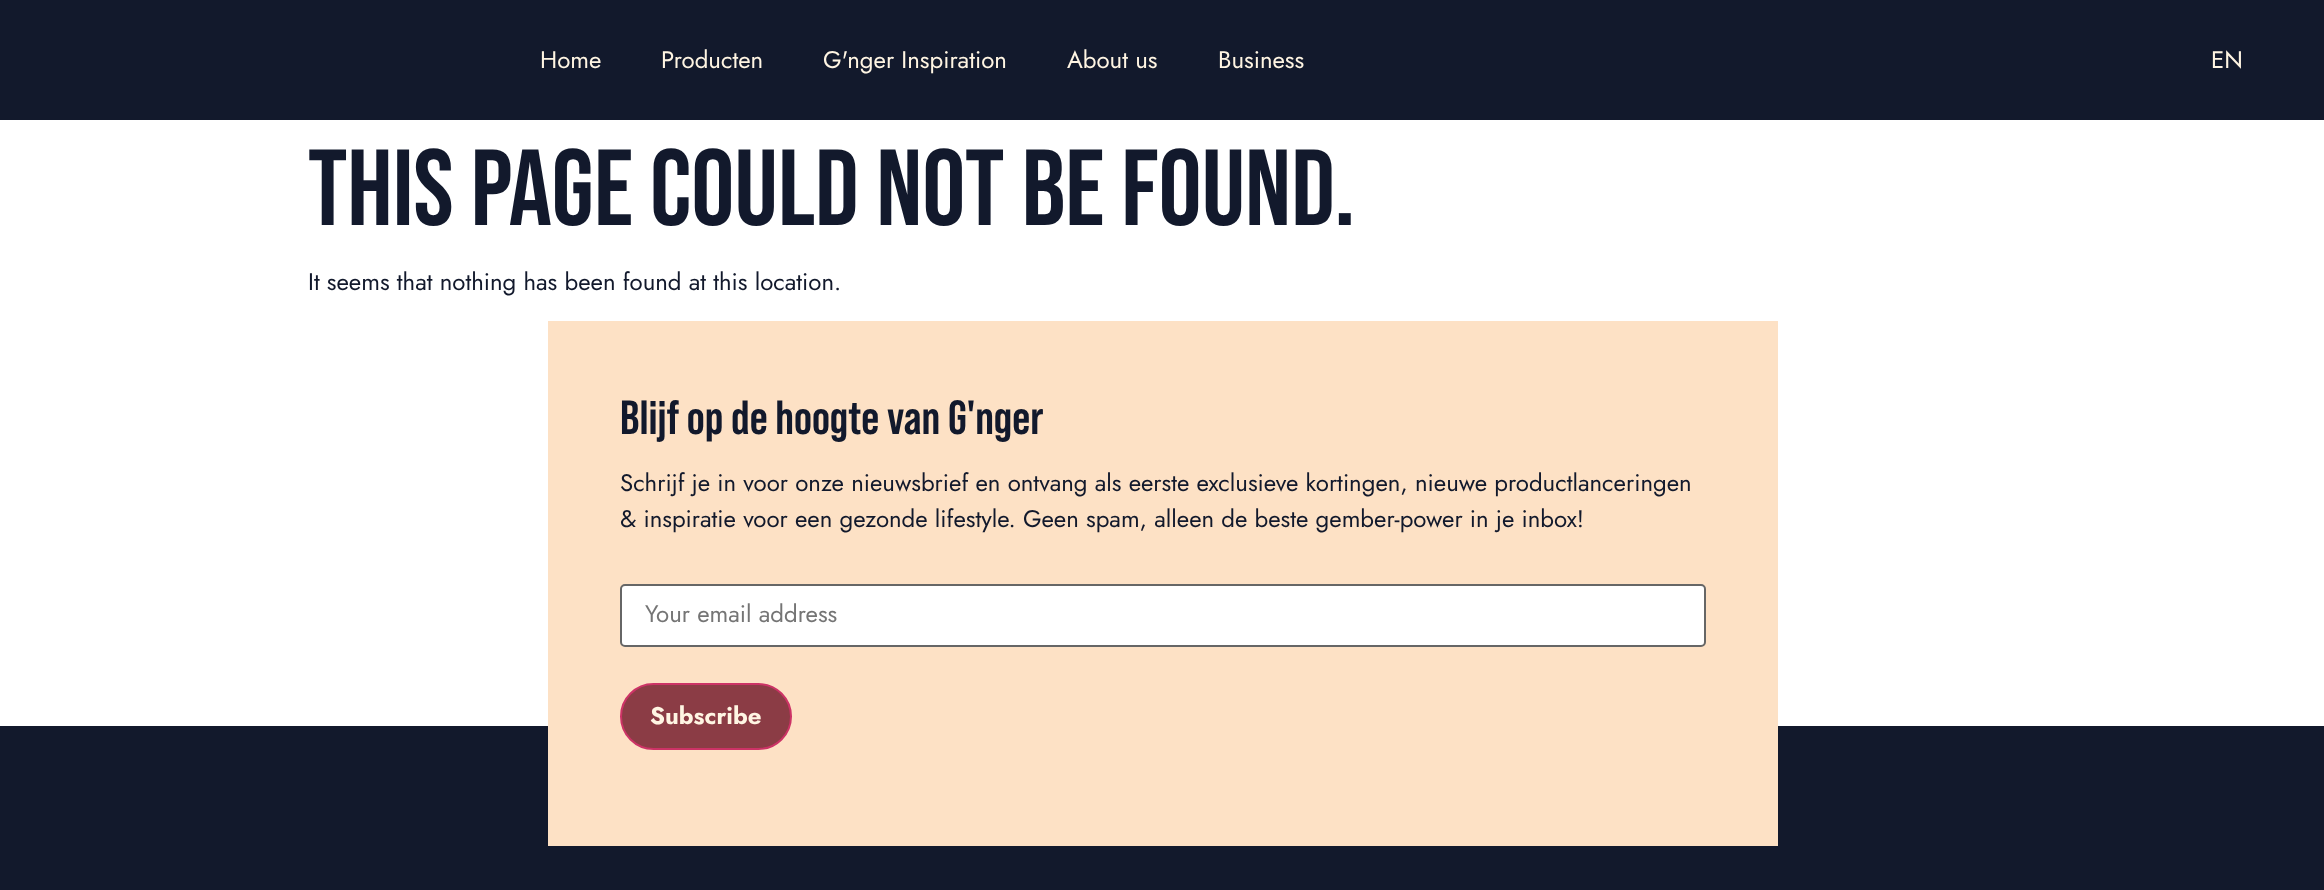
<svg xmlns="http://www.w3.org/2000/svg" width="2324" height="890" viewBox="0 0 2324 890">
  <rect width="100%" height="100%" fill="#ffffff"/>
  <rect x="0" y="0" width="2324" height="120" fill="#12192c"/>
  <text x="540" y="68" font-family="Jost" font-size="24" fill="#fff5e3">Home</text>
  <text x="661" y="68" font-family="Jost" font-size="24" fill="#fff5e3">Producten</text>
  <text x="823" y="68" font-family="Jost" font-size="24" fill="#fff5e3">G'nger Inspiration</text>
  <text x="1067" y="68" font-family="Jost" font-size="24" fill="#fff5e3">About us</text>
  <text x="1218" y="68" font-family="Jost" font-size="24" fill="#fff5e3">Business</text>
  <text x="2211" y="68" font-family="Jost" font-size="24" fill="#fff5e3">EN</text>
  <text x="308" y="225" font-family="Bebas Neue" font-size="108" font-weight="bold" fill="#12192c">THIS PAGE COULD NOT BE FOUND.</text>
  <text x="308" y="290" font-family="Jost" font-size="24" fill="#12192c">It seems that nothing has been found at this location.</text>
  <rect x="0" y="726" width="2324" height="164" fill="#12192c"/>
  <rect x="548" y="321" width="1230" height="525" fill="#fde1c5"/>
  <text x="620" y="434" font-family="Bebas Neue" font-size="48" font-weight="bold" fill="#12192c">Blijf op de hoogte van G'nger</text>
  <text x="620" y="491" font-family="Jost" font-size="24" fill="#12192c">Schrijf je in voor onze nieuwsbrief en ontvang als eerste exclusieve kortingen, nieuwe productlanceringen</text>
  <text x="620" y="527" font-family="Jost" font-size="24" fill="#12192c">&amp; inspiratie voor een gezonde lifestyle. Geen spam, alleen de beste gember-power in je inbox!</text>
  <rect x="621" y="585" width="1084" height="61" rx="4" fill="#ffffff" stroke="#666666" stroke-width="2"/>
  <text x="645" y="622" font-family="Jost" font-size="24" fill="#757575">Your email address</text>
  <rect x="621" y="684" width="170" height="65" rx="32.5" fill="#8b3c45" stroke="#cc3366" stroke-width="2"/>
  <text x="650" y="724" font-family="Jost" font-size="24" font-weight="bold" fill="#fff5e3">Subscribe</text>
</svg>
